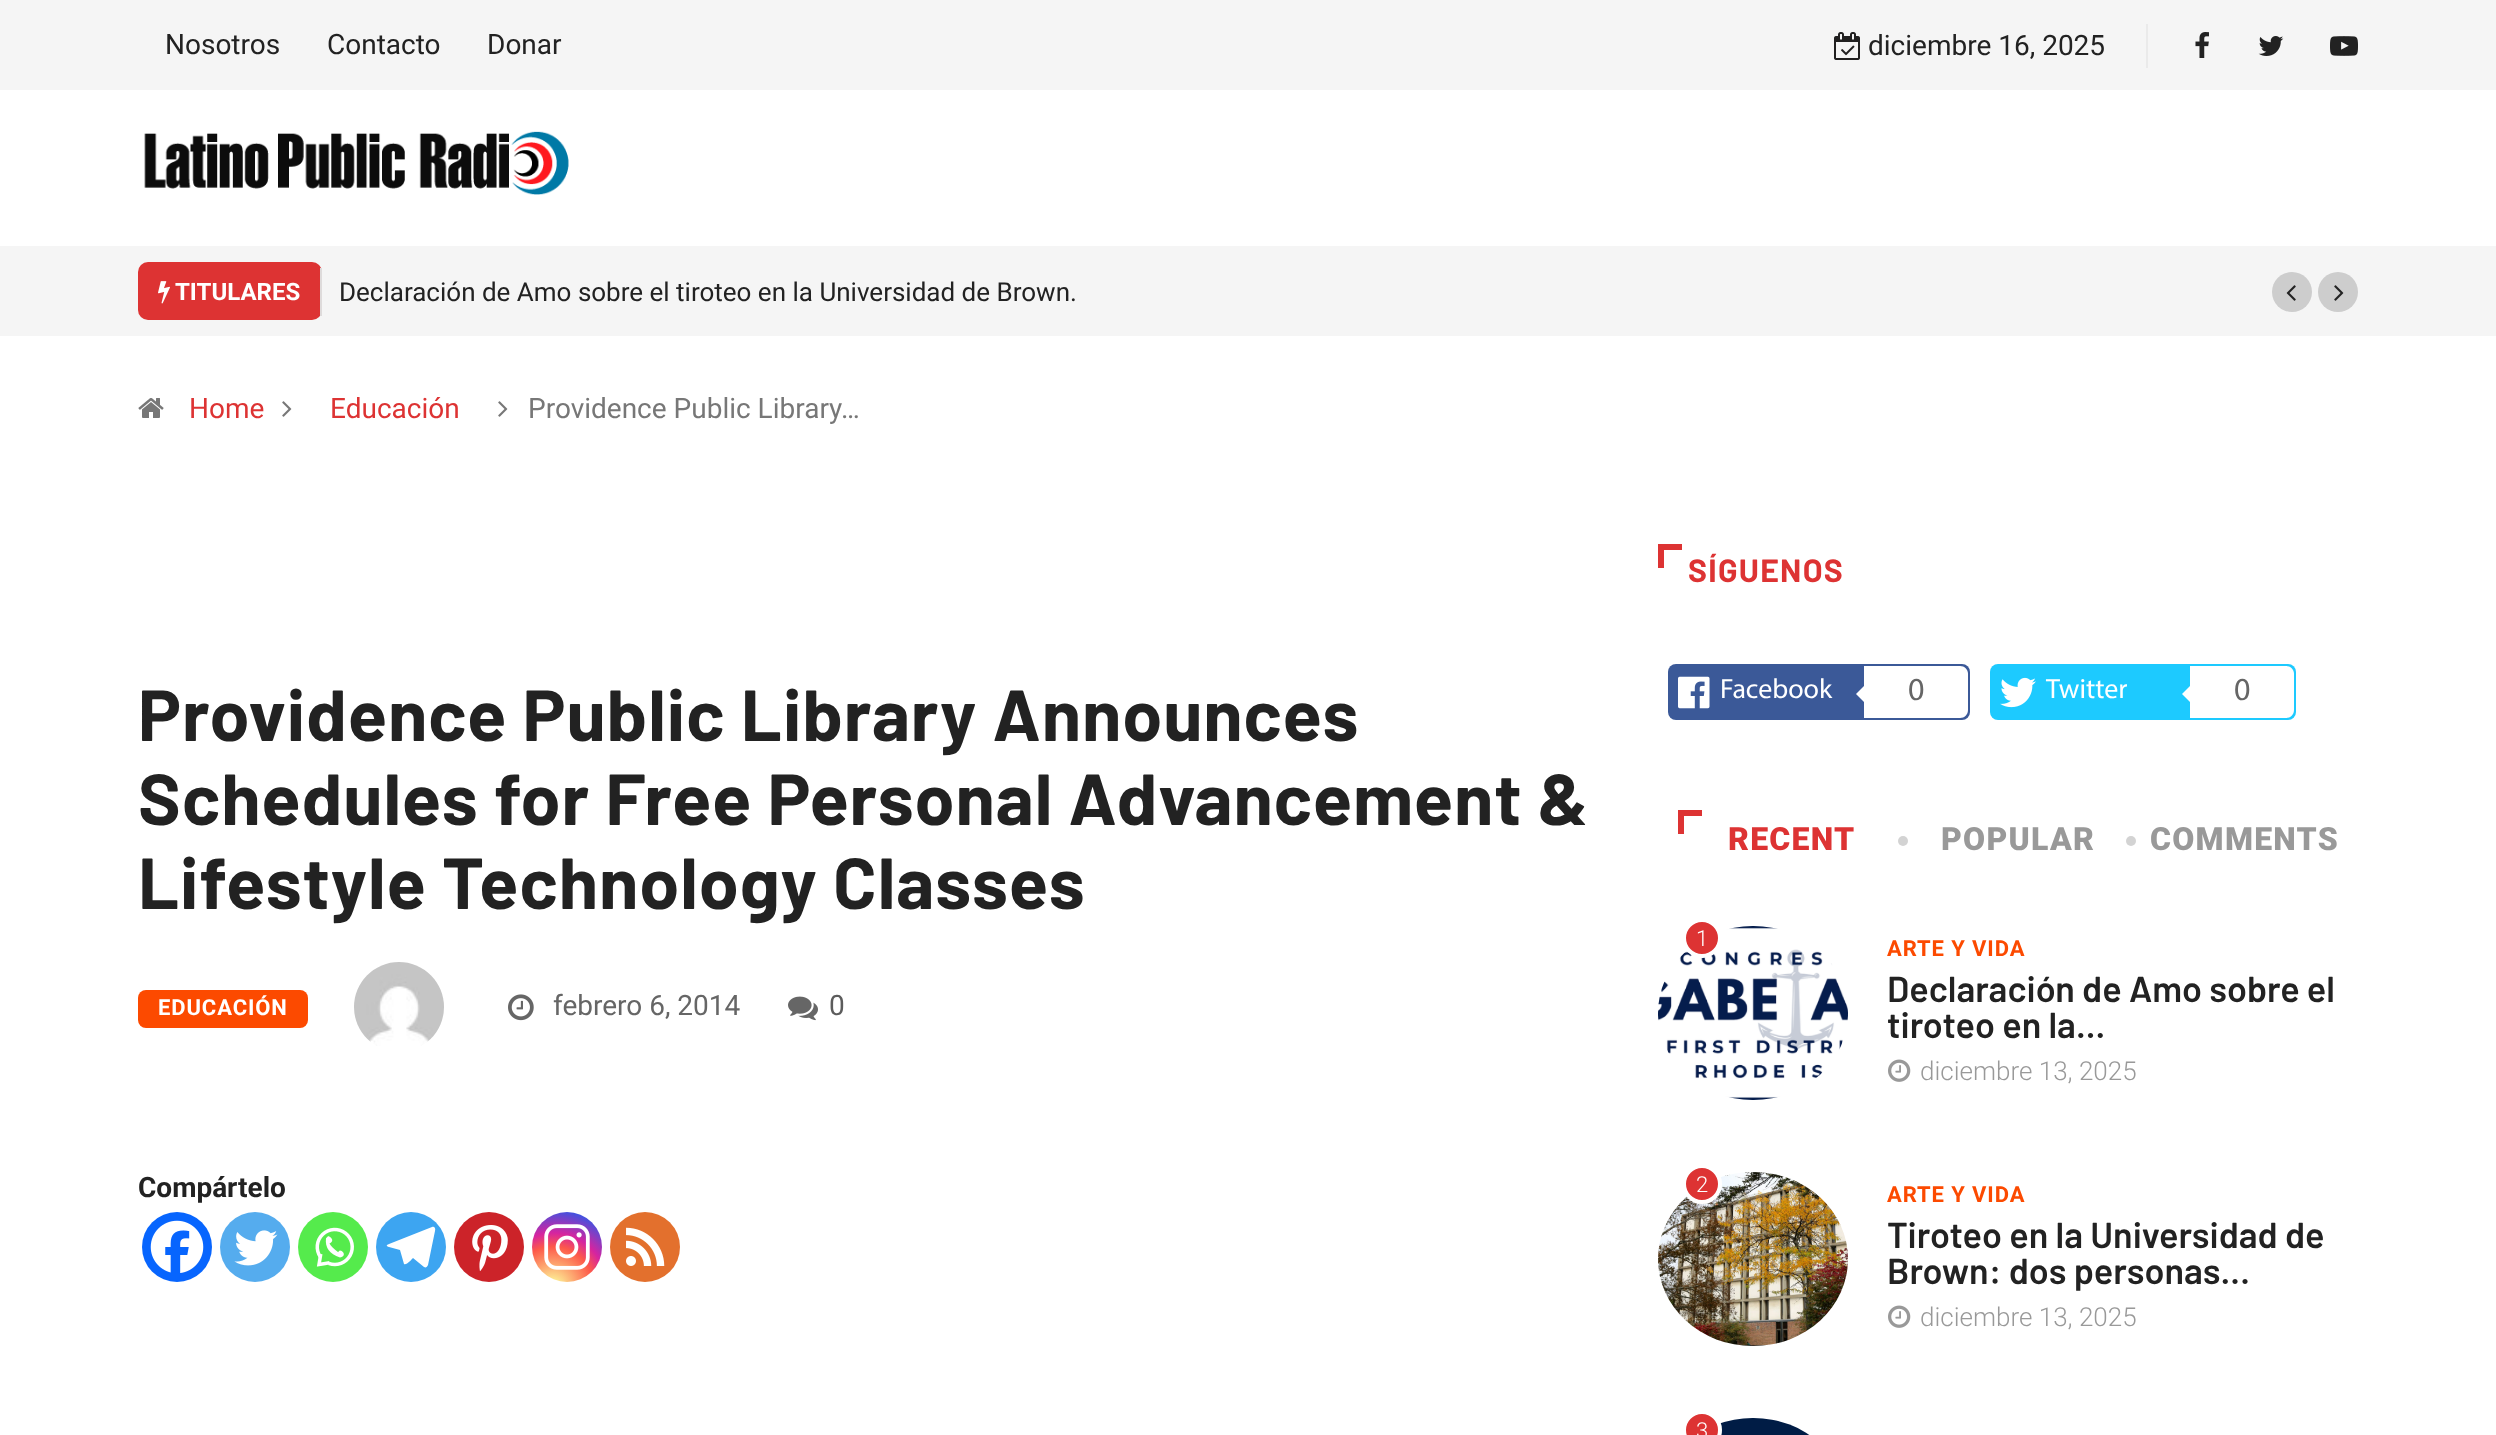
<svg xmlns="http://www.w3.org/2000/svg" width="2496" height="1435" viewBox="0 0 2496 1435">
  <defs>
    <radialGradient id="g1" gradientUnits="userSpaceOnUse" cx="553" cy="1287" r="90"><stop offset="0" stop-color="#fdf497"/><stop offset="0.05" stop-color="#fdf497"/><stop offset="0.45" stop-color="#fd5949"/><stop offset="0.6" stop-color="#d6249f"/><stop offset="0.9" stop-color="#285aeb"/></radialGradient>
  </defs>
  <rect width="100%" height="100%" fill="#ffffff"/>
  <rect x="0" y="0" width="2496" height="90" fill="#f5f5f5"/>
  <text x="165" y="54" font-family="Roboto" font-size="28" fill="#222222">Nosotros</text>
  <text x="327" y="54" font-family="Roboto" font-size="28" fill="#222222">Contacto</text>
  <text x="487" y="54" font-family="Roboto" font-size="28" fill="#222222">Donar</text>
  <rect x="2146" y="24" width="2" height="44" fill="#eaeaea"/>
  <image x="1834" y="32" width="26" height="28" href="img1.png"/>
  <text x="1868" y="55" font-family="Roboto" font-size="28" fill="#222222">diciembre 16, 2025</text>
  <image x="2195" y="32" width="14" height="26" href="img2.png"/>
  <image x="2258" y="36" width="26" height="20" href="img3.png"/>
  <image x="2330" y="36" width="28" height="20" href="img4.png"/>
  <image x="144" y="131" width="425" height="64" href="img5.png"/>
  <rect x="0" y="246" width="2496" height="90" fill="#f5f5f5"/>
  <rect x="138" y="262" width="184" height="58" rx="10" fill="#dd3333"/>
  <rect x="320" y="268" width="2" height="48" fill="#dedbdb"/>
  <image x="158" y="281" width="12" height="23" href="img6.png"/>
  <text x="175" y="300" font-family="Roboto" font-size="24" font-weight="bold" fill="#ffffff">TITULARES</text>
  <text x="339" y="301" font-family="Roboto" font-size="26" fill="#222222">Declaración de Amo sobre el tiroteo en la Universidad de Brown.</text>
  <circle cx="2292" cy="292" r="20" fill="#cdcdcd"/>
  <image x="2286" y="285" width="10" height="16" href="img7.png"/>
  <circle cx="2338" cy="292" r="20" fill="#cdcdcd"/>
  <image x="2334" y="285" width="10" height="16" href="img8.png"/>
  <image x="138" y="398" width="26" height="20" href="img9.png"/>
  <text x="189" y="418" font-family="Roboto" font-size="28" fill="#dd3333">Home</text>
  <image x="282" y="401" width="10" height="16" href="img10.png"/>
  <text x="330" y="418" font-family="Roboto" font-size="28" fill="#dd3333">Educación</text>
  <image x="498" y="401" width="10" height="16" href="img10.png"/>
  <text x="528" y="418" font-family="Roboto" font-size="28" fill="#777777">Providence Public Library…</text>
  <text x="138" y="741" font-family="Barlow" font-size="72" font-weight="bold" letter-spacing="0.9" fill="#222222">Providence Public Library Announces</text>
  <text x="138" y="825" font-family="Barlow" font-size="72" font-weight="bold" letter-spacing="0.9" fill="#222222">Schedules for Free Personal Advancement &amp;</text>
  <text x="138" y="909" font-family="Barlow" font-size="72" font-weight="bold" letter-spacing="0.9" fill="#222222">Lifestyle Technology Classes</text>
  <rect x="138" y="990" width="170" height="38" rx="8" fill="#fc4a00"/>
  <text x="158" y="1015" font-family="Roboto" font-size="22" font-weight="bold" letter-spacing="0.9" fill="#ffffff">EDUCACIÓN</text>
  <image x="354" y="962" width="90" height="84" href="img11.png"/>
  <image x="508" y="994" width="26" height="27" href="img12.png"/>
  <text x="553" y="1015" font-family="Roboto" font-size="28" fill="#666666">febrero 6, 2014</text>
  <image x="788" y="996" width="30" height="25" href="img13.png"/>
  <text x="829" y="1015" font-family="Roboto" font-size="28" fill="#5c5c5c">0</text>
  <text x="138" y="1197" font-family="Roboto" font-size="28" font-weight="bold" fill="#222222">Compártelo</text>
  <circle cx="177" cy="1247" r="35" fill="#0765fe"/>
  <image x="150" y="1220" width="54" height="53" href="img14.png"/>
  <circle cx="255" cy="1247" r="35" fill="#55acee"/>
  <image x="234" y="1230" width="44" height="36" href="img15.png"/>
  <circle cx="333" cy="1247" r="35" fill="#55eb4c"/>
  <image x="315" y="1227" width="39" height="40" href="img16.png"/>
  <circle cx="411" cy="1247" r="35" fill="#3da5f1"/>
  <path d="M432 1227L389 1244C386 1245 386 1246 389 1247L400 1250L404 1264C406 1266 412 1259 413 1258L424 1267C426 1268 427 1267 428 1265L435 1231C436 1228 434 1226 432 1227Z" fill="#ffffff"/>
  <circle cx="489" cy="1247" r="35" fill="#cc2329"/>
  <image x="472" y="1225" width="36" height="46" href="img17.png"/>
  <circle cx="567" cy="1247" r="35" fill="url(#g1)"/>
  <image x="544" y="1224" width="46" height="46" href="img18.png"/>
  <circle cx="645" cy="1247" r="35" fill="#e3702d"/>
  <image x="626" y="1227" width="39" height="39" href="img19.png"/>
  <rect x="1658" y="544" width="6" height="24" fill="#dd3333"/>
  <rect x="1658" y="544" width="24" height="6" fill="#dd3333"/>
  <text x="1688" y="582" font-family="Barlow" font-size="32" font-weight="bold" letter-spacing="1.25" fill="#dd3333">SÍGUENOS</text>
  <rect x="1668" y="664" width="302" height="56" rx="8" fill="#3b5998"/>
  <image x="1678" y="676" width="32" height="33" href="img20.png"/>
  <text x="1720" y="698" font-family="Myriad" font-size="28" fill="#ffffff">Facebook</text>
  <path d="M1864 666H1960C1964.5 666 1968 669.5 1968 674V710C1968 714.5 1964.5 718 1960 718H1864Z" fill="#ffffff"/>
  <path d="M1864 686V702L1856 694Z" fill="#ffffff"/>
  <text x="1908" y="700" font-family="Myriad" font-size="32" fill="#666666">0</text>
  <rect x="1990" y="664" width="306" height="56" rx="8" fill="#1dcaff"/>
  <image x="2000" y="677" width="36" height="31" href="img21.png"/>
  <text x="2046" y="698" font-family="Myriad" font-size="28" fill="#ffffff">Twitter</text>
  <path d="M2190 666H2286C2290.5 666 2294 669.5 2294 674V710C2294 714.5 2290.5 718 2286 718H2190Z" fill="#ffffff"/>
  <path d="M2190 686V702L2182 694Z" fill="#ffffff"/>
  <text x="2234" y="700" font-family="Myriad" font-size="32" fill="#666666">0</text>
  <rect x="1678" y="810" width="6" height="24" fill="#dd3333"/>
  <rect x="1678" y="810" width="24" height="6" fill="#dd3333"/>
  <text x="1728" y="850" font-family="Roboto" font-size="32" font-weight="900" letter-spacing="1.25" fill="#dd3333">RECENT</text>
  <circle cx="1903" cy="841" r="5" fill="#d3d3d3"/>
  <text x="1941" y="850" font-family="Roboto" font-size="32" font-weight="900" letter-spacing="1.25" fill="#999999">POPULAR</text>
  <circle cx="2131" cy="841" r="5" fill="#d3d3d3"/>
  <text x="2150" y="850" font-family="Roboto" font-size="32" font-weight="900" letter-spacing="1.25" fill="#999999">COMMENTS</text>
  <image x="1658" y="926" width="190" height="174" href="img22.png"/>
  <circle cx="1702" cy="938" r="18" fill="#dd3333" stroke="#ffffff" stroke-width="4"/>
  <text x="1696" y="946" font-family="Roboto" font-size="22" font-weight="300" fill="#ffffff">1</text>
  <text x="1887" y="956" font-family="Roboto" font-size="22" font-weight="bold" letter-spacing="0.9" fill="#fc4a00">ARTE Y VIDA</text>
  <text x="1887" y="1002" font-family="Barlow" font-size="36" font-weight="600" fill="#222222">Declaración de Amo sobre el</text>
  <text x="1887" y="1038" font-family="Barlow" font-size="36" font-weight="600" fill="#222222">tiroteo en la...</text>
  <image x="1888" y="1059" width="23" height="23" href="img23.png"/>
  <text x="1920" y="1080" font-family="Roboto" font-size="26" font-weight="300" fill="#999999">diciembre 13, 2025</text>
  <image x="1658" y="1172" width="190" height="174" href="img24.png"/>
  <circle cx="1702" cy="1184" r="18" fill="#dd3333" stroke="#ffffff" stroke-width="4"/>
  <text x="1696" y="1192" font-family="Roboto" font-size="22" font-weight="300" fill="#ffffff">2</text>
  <text x="1887" y="1202" font-family="Roboto" font-size="22" font-weight="bold" letter-spacing="0.9" fill="#fc4a00">ARTE Y VIDA</text>
  <text x="1887" y="1248" font-family="Barlow" font-size="36" font-weight="600" fill="#222222">Tiroteo en la Universidad de</text>
  <text x="1887" y="1284" font-family="Barlow" font-size="36" font-weight="600" fill="#222222">Brown: dos personas...</text>
  <image x="1888" y="1305" width="23" height="23" href="img23.png"/>
  <text x="1920" y="1326" font-family="Roboto" font-size="26" font-weight="300" fill="#999999">diciembre 13, 2025</text>
  <image x="1720" y="1418" width="90" height="17" href="img25.png"/>
  <circle cx="1702" cy="1430" r="18" fill="#dd3333" stroke="#ffffff" stroke-width="4"/>
  <text x="1696" y="1438" font-family="Roboto" font-size="22" font-weight="300" fill="#ffffff">3</text>
</svg>
